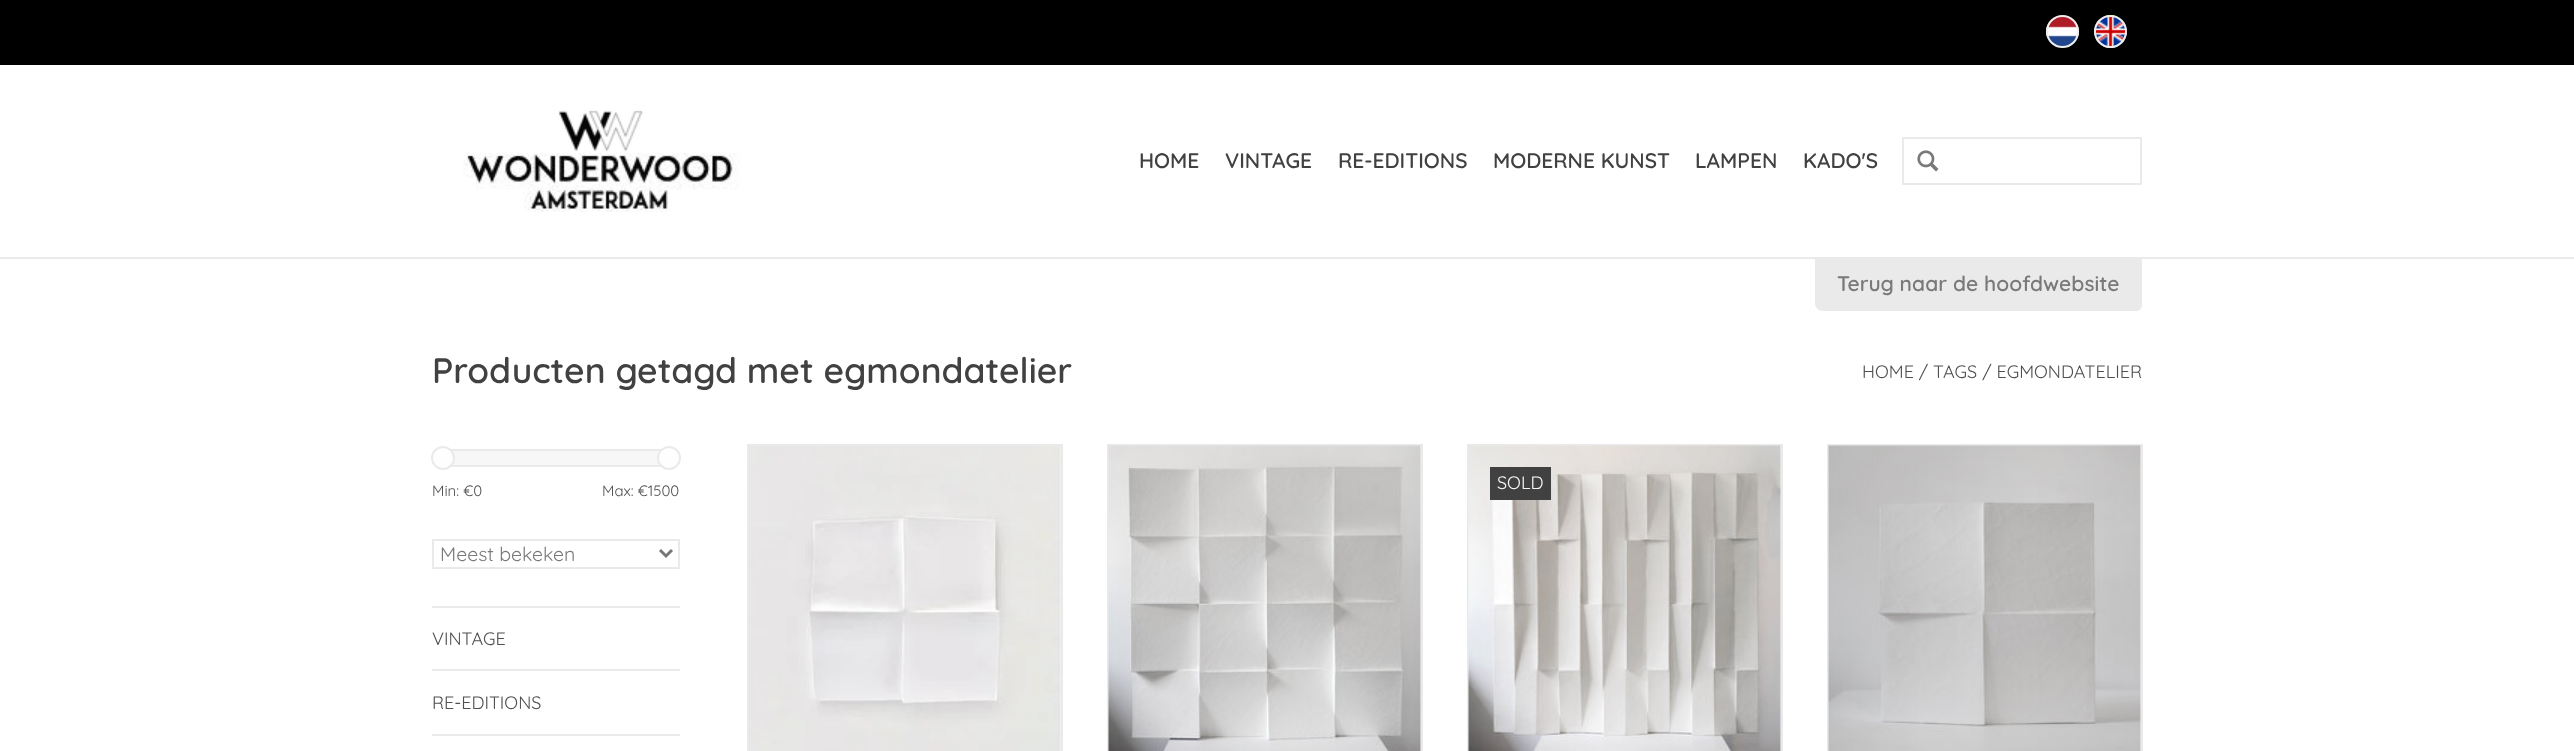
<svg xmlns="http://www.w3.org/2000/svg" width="2574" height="751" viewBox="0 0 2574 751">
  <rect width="100%" height="100%" fill="#ffffff"/>
  <rect x="0" y="257" width="2574" height="2" fill="#eaeaea"/>
  <rect x="0" y="0" width="2574" height="65" fill="#000000"/>
  <image x="2046" y="16" width="33" height="31" href="img1.png"/>
  <circle cx="2062.5" cy="31.5" r="15.5" fill="none" stroke="#eeeeee" stroke-width="2"/>
  <image x="2094" y="15" width="33" height="33" href="img2.png"/>
  <circle cx="2110.5" cy="31.5" r="15.5" fill="none" stroke="#eeeeee" stroke-width="2"/>
  <image x="463" y="110" width="277" height="102" href="img3.png"/>
  <text x="1139" y="168" font-family="Quicksand" font-size="21" font-weight="600" fill="#414141">HOME</text>
  <text x="1225" y="168" font-family="Quicksand" font-size="21" font-weight="600" fill="#414141">VINTAGE</text>
  <text x="1338" y="168" font-family="Quicksand" font-size="21" font-weight="600" fill="#414141">RE-EDITIONS</text>
  <text x="1493" y="168" font-family="Quicksand" font-size="21" font-weight="600" fill="#414141">MODERNE KUNST</text>
  <text x="1695" y="168" font-family="Quicksand" font-size="21" font-weight="600" fill="#414141">LAMPEN</text>
  <text x="1803" y="168" font-family="Quicksand" font-size="21" font-weight="600" fill="#414141">KADO'S</text>
  <rect x="1903" y="138" width="238" height="46" fill="none" stroke="#eaeaea" stroke-width="2"/>
  <image x="1917" y="150" width="22" height="22" href="img4.png"/>
  <path d="M1815 258H2142V305C2142 308.5 2139.5 311 2136 311H1823C1818.5 311 1815 307.5 1815 303Z" fill="#eaeaea"/>
  <text x="1837" y="291" font-family="Quicksand" font-size="21" font-weight="600" fill="#797979">Terug naar de hoofdwebsite</text>
  <text x="432" y="383" font-family="Quicksand" font-size="35.4" font-weight="600" fill="#414141">Producten getagd met egmondatelier</text>
  <text x="1862" y="378" font-family="Quicksand" font-size="18" fill="#505050">HOME / TAGS / EGMONDATELIER</text>
  <rect x="1060" y="446" width="1" height="305" fill="#f7f7f7"/>
  <rect x="747" y="444" width="315" height="2" fill="#eaeaea"/>
  <rect x="1061" y="444" width="2" height="307" fill="#eaeaea"/>
  <rect x="747" y="444" width="2" height="307" fill="#eaeaea"/>
  <image x="749" y="446" width="312" height="305" href="img5.png"/>
  <rect x="1420" y="446" width="1" height="305" fill="#f7f7f7"/>
  <rect x="1107" y="444" width="315" height="2" fill="#eaeaea"/>
  <rect x="1421" y="444" width="2" height="307" fill="#eaeaea"/>
  <rect x="1107" y="444" width="2" height="307" fill="#eaeaea"/>
  <image x="1108" y="445" width="313" height="306" href="img6.png"/>
  <rect x="1780" y="446" width="1" height="305" fill="#f7f7f7"/>
  <rect x="1467" y="444" width="315" height="2" fill="#eaeaea"/>
  <rect x="1781" y="444" width="2" height="307" fill="#eaeaea"/>
  <rect x="1467" y="444" width="2" height="307" fill="#eaeaea"/>
  <image x="1468" y="445" width="313" height="306" href="img7.png"/>
  <rect x="1490" y="467" width="61" height="33" fill="#414141"/>
  <text x="1497" y="489" font-family="Quicksand" font-size="18" fill="#f7f7f7">SOLD</text>
  <rect x="2140" y="446" width="1" height="305" fill="#f7f7f7"/>
  <rect x="1827" y="444" width="315" height="2" fill="#eaeaea"/>
  <rect x="2141" y="444" width="2" height="307" fill="#eaeaea"/>
  <rect x="1827" y="444" width="2" height="307" fill="#eaeaea"/>
  <image x="1828" y="445" width="313" height="306" href="img8.png"/>
  <rect x="432" y="606" width="248" height="2" fill="#eaeaea"/>
  <rect x="452" y="451" width="208" height="14" fill="#f7f7f7"/>
  <rect x="445" y="450" width="225" height="16" fill="none" stroke="#eaeaea" stroke-width="2"/>
  <circle cx="443" cy="458" r="11" fill="#fefefe" stroke="#eaeaea" stroke-width="2"/>
  <circle cx="669" cy="458" r="11" fill="#fefefe" stroke="#eaeaea" stroke-width="2"/>
  <text x="432" y="496" font-family="Quicksand" font-size="15" fill="#505050">Min: €0</text>
  <text x="602" y="496" font-family="Quicksand" font-size="15" fill="#505050">Max: €1500</text>
  <rect x="433" y="540" width="246" height="28" fill="none" stroke="#eaeaea" stroke-width="2"/>
  <path d="M660 550L666 556L672 550" fill="none" stroke="#777777" stroke-width="3"/>
  <text x="440" y="561" font-family="Quicksand" font-size="19.5" fill="#797979">Meest bekeken</text>
  <rect x="432" y="669" width="248" height="2" fill="#eaeaea"/>
  <text x="432" y="645" font-family="Quicksand" font-size="18" fill="#505050">VINTAGE</text>
  <rect x="432" y="734" width="248" height="2" fill="#eaeaea"/>
  <text x="432" y="709" font-family="Quicksand" font-size="18" fill="#505050">RE-EDITIONS</text>
</svg>
